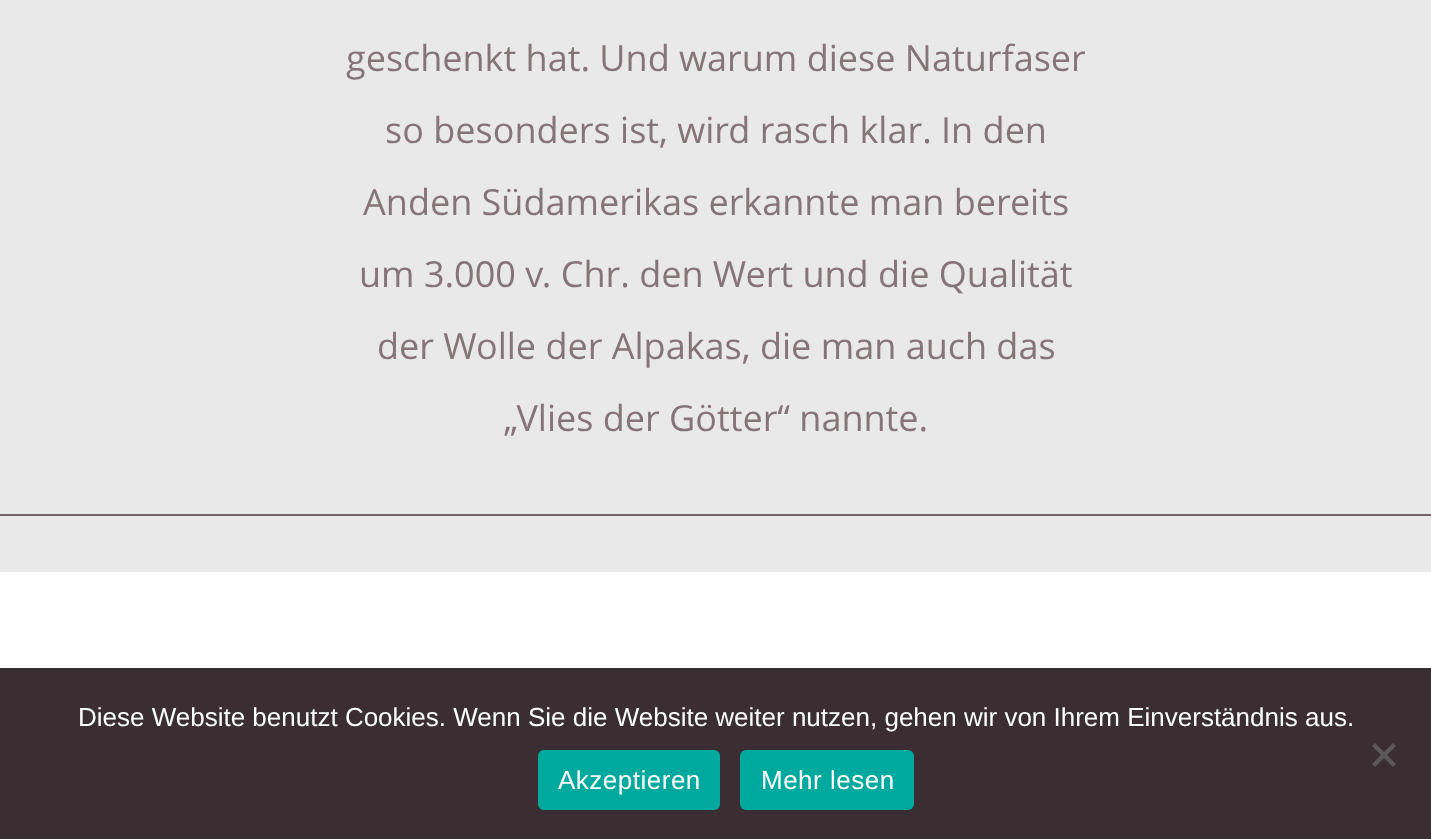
<svg xmlns="http://www.w3.org/2000/svg" width="1431" height="839" viewBox="0 0 1431 839">
  <rect width="100%" height="100%" fill="#ffffff"/>
  <rect x="0" y="0" width="1431" height="572" fill="#e9e9e9"/>
  <rect x="0" y="514" width="1431" height="2" fill="#716165"/>
  <text x="346" y="71" font-family="Open Sans" font-size="36" fill="#847578">geschenkt hat. Und warum diese Naturfaser</text>
  <text x="385" y="143" font-family="Open Sans" font-size="36" fill="#847578">so besonders ist, wird rasch klar. In den</text>
  <text x="363" y="215" font-family="Open Sans" font-size="36" fill="#847578">Anden Südamerikas erkannte man bereits</text>
  <text x="359" y="287" font-family="Open Sans" font-size="36" fill="#847578">um 3.000 v. Chr. den Wert und die Qualität</text>
  <text x="377" y="359" font-family="Open Sans" font-size="36" fill="#847578">der Wolle der Alpakas, die man auch das</text>
  <text x="504" y="431" font-family="Open Sans" font-size="36" fill="#847578">„Vlies der Götter“ nannte.</text>
  <rect x="0" y="668" width="1431" height="171" fill="#3b2e33"/>
  <text x="78" y="726" font-family="Liberation Sans" font-size="26" fill="#ffffff">Diese Website benutzt Cookies. Wenn Sie die Website weiter nutzen, gehen wir von Ihrem Einverständnis aus.</text>
  <path d="M1393 743L1396 746L1375 767L1372 764Z" fill="#5e575a"/>
  <path d="M1372 746L1375 743L1396 764L1393 767Z" fill="#5e575a"/>
  <rect x="538" y="750" width="182" height="60" rx="6" fill="#00a99d"/>
  <text x="558" y="789" font-family="Liberation Sans" font-size="26" letter-spacing="0.5" fill="#ffffff">Akzeptieren</text>
  <rect x="740" y="750" width="174" height="60" rx="6" fill="#00a99d"/>
  <text x="761" y="789" font-family="Liberation Sans" font-size="26" letter-spacing="0.5" fill="#ffffff">Mehr lesen</text>
</svg>
